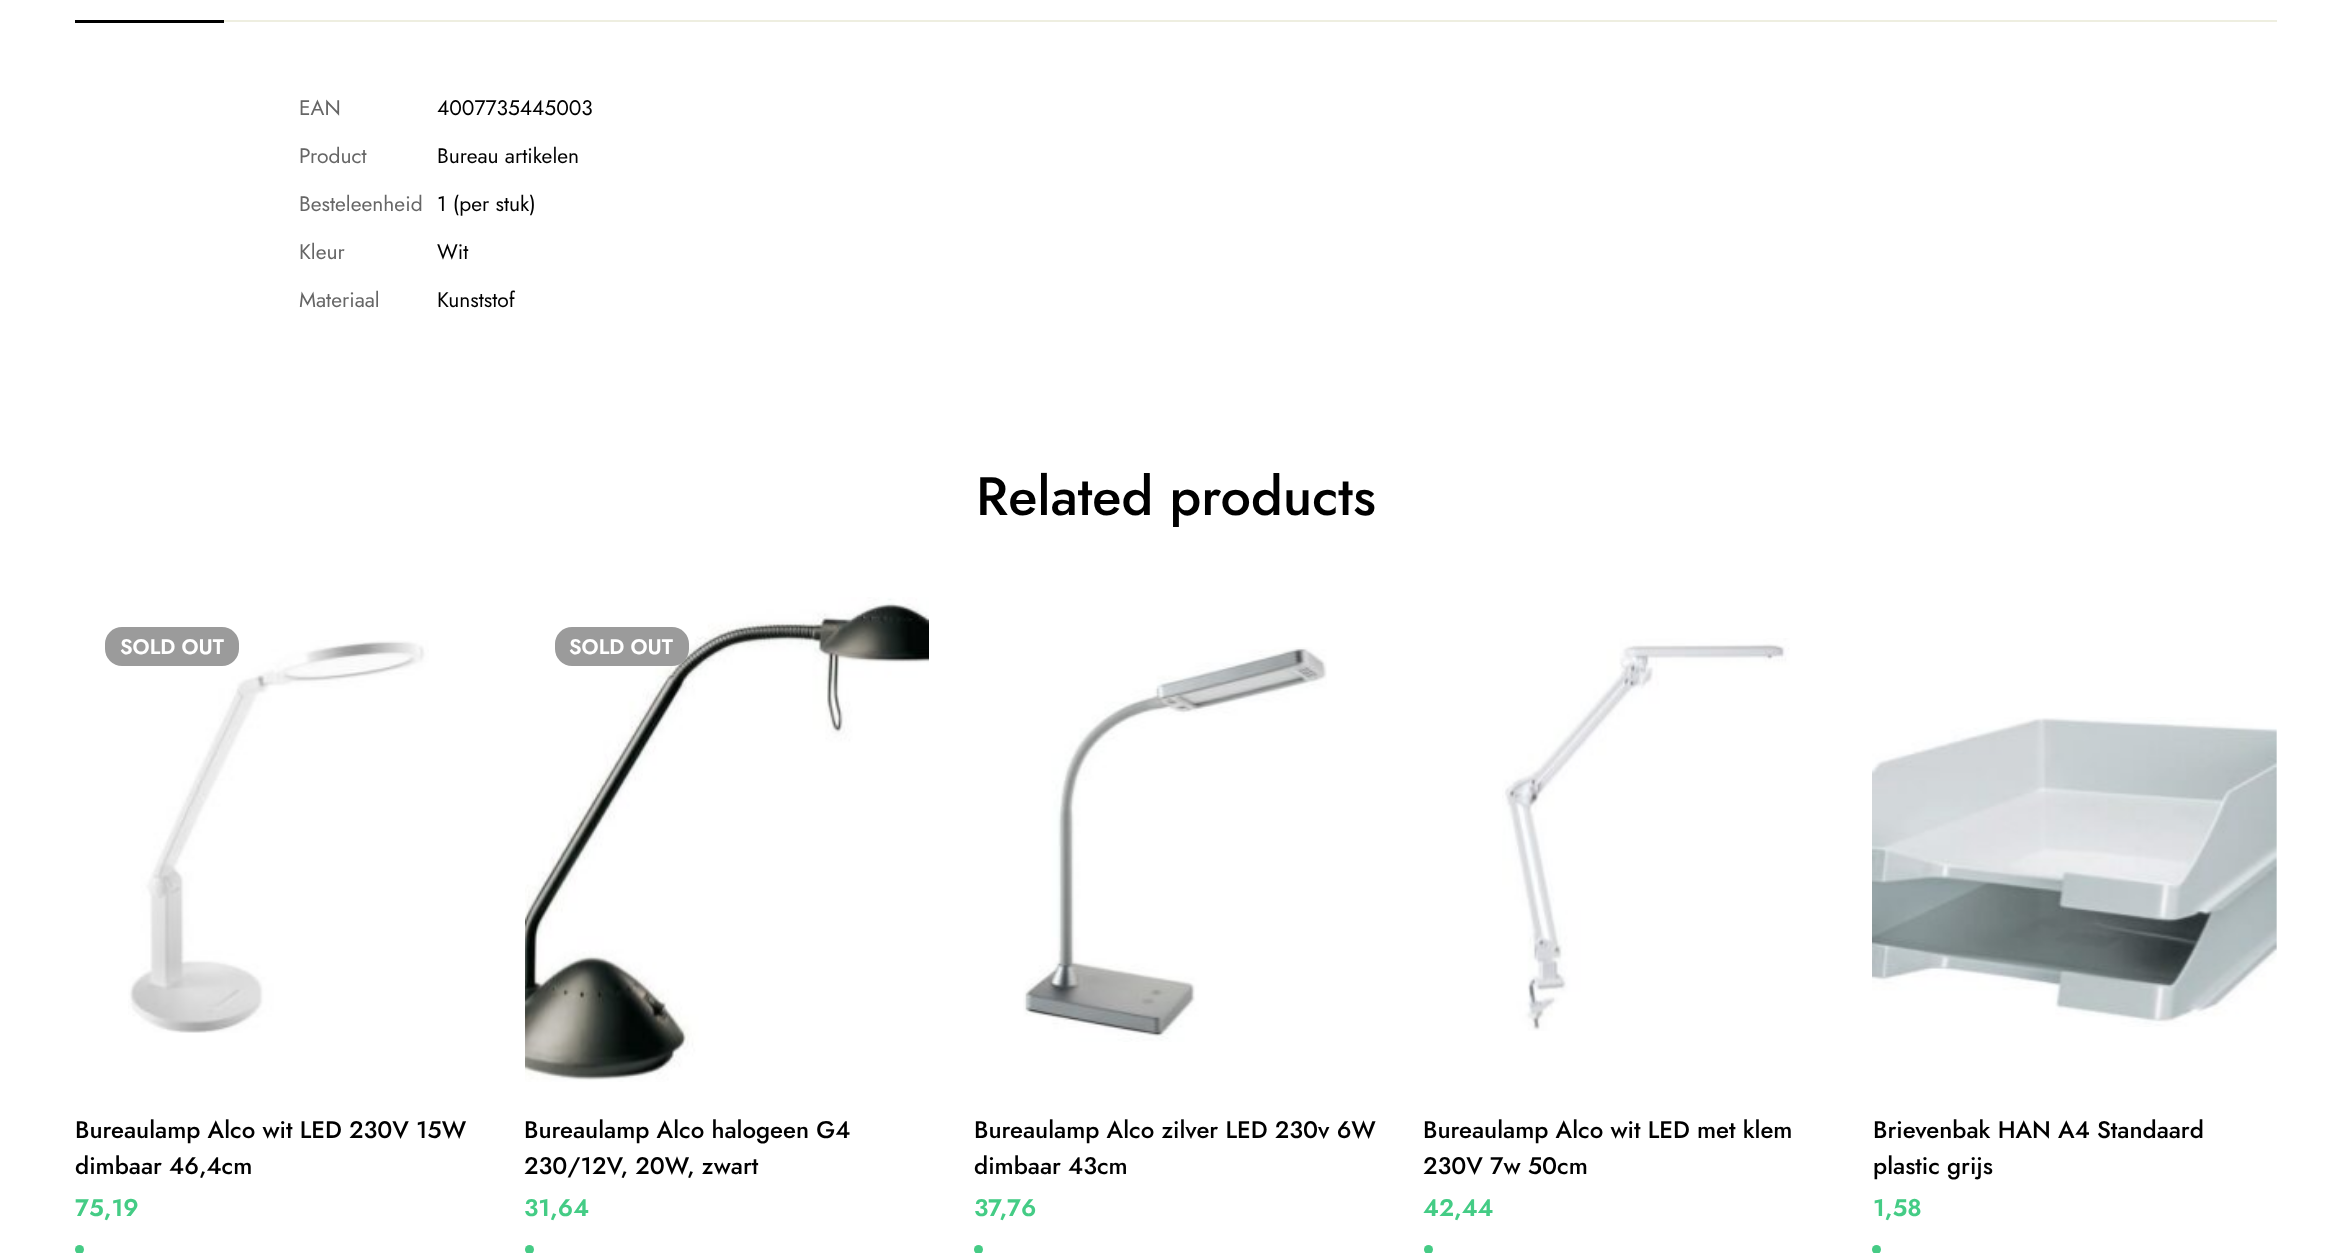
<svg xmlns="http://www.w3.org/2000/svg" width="2352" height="1253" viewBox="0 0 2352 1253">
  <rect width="100%" height="100%" fill="#ffffff"/>
  <rect x="75" y="20" width="149" height="3" fill="#000000"/>
  <rect x="224" y="20" width="2053" height="2" fill="#eeeee0"/>
  <text x="299" y="115" font-family="Jost" font-size="21" fill="#666666">EAN</text>
  <text x="437" y="115" font-family="Jost" font-size="21" fill="#000000">4007735445003</text>
  <text x="299" y="163" font-family="Jost" font-size="21" fill="#666666">Product</text>
  <text x="437" y="163" font-family="Jost" font-size="21" fill="#000000">Bureau artikelen</text>
  <text x="299" y="211" font-family="Jost" font-size="21" fill="#666666">Besteleenheid</text>
  <text x="437" y="211" font-family="Jost" font-size="21" fill="#000000">1 (per stuk)</text>
  <text x="299" y="259" font-family="Jost" font-size="21" fill="#666666">Kleur</text>
  <text x="437" y="259" font-family="Jost" font-size="21" fill="#000000">Wit</text>
  <text x="299" y="307" font-family="Jost" font-size="21" fill="#666666">Materiaal</text>
  <text x="437" y="307" font-family="Jost" font-size="21" fill="#000000">Kunststof</text>
  <text x="976" y="515" font-family="Jost" font-size="54" font-weight="500" fill="#000000">Related products</text>
  <image x="128" y="640" width="301" height="393" href="img1.png"/>
  <rect x="105" y="627" width="134" height="39" rx="17" fill="#9b9b9b"/>
  <text x="120" y="654" font-family="Jost" font-size="21" font-weight="600" fill="#ffffff">SOLD OUT</text>
  <text x="75" y="1138" font-family="Jost" font-size="24" font-weight="500" fill="#000000">Bureaulamp Alco wit LED 230V 15W</text>
  <text x="75" y="1174" font-family="Jost" font-size="24" font-weight="500" fill="#000000">dimbaar 46,4cm</text>
  <text x="75" y="1216" font-family="Jost" font-size="24" font-weight="600" fill="#44cc85">75,19</text>
  <circle cx="79.5" cy="1249.5" r="4.5" fill="#45cb85"/>
  <image x="525" y="597" width="404" height="485" href="img2.png"/>
  <rect x="555" y="627" width="134" height="39" rx="17" fill="#9b9b9b"/>
  <text x="569" y="654" font-family="Jost" font-size="21" font-weight="600" fill="#ffffff">SOLD OUT</text>
  <text x="524" y="1138" font-family="Jost" font-size="24" font-weight="500" fill="#000000">Bureaulamp Alco halogeen G4</text>
  <text x="524" y="1174" font-family="Jost" font-size="24" font-weight="500" fill="#000000">230/12V, 20W, zwart</text>
  <text x="524" y="1216" font-family="Jost" font-size="24" font-weight="600" fill="#44cc85">31,64</text>
  <circle cx="529.5" cy="1249.5" r="4.5" fill="#45cb85"/>
  <image x="1023" y="647" width="304" height="395" href="img3.png"/>
  <text x="974" y="1138" font-family="Jost" font-size="24" font-weight="500" fill="#000000">Bureaulamp Alco zilver LED 230v 6W</text>
  <text x="974" y="1174" font-family="Jost" font-size="24" font-weight="500" fill="#000000">dimbaar 43cm</text>
  <text x="974" y="1216" font-family="Jost" font-size="24" font-weight="600" fill="#44cc85">37,76</text>
  <circle cx="978.5" cy="1249.5" r="4.5" fill="#45cb85"/>
  <image x="1502" y="638" width="288" height="393" href="img4.png"/>
  <text x="1423" y="1138" font-family="Jost" font-size="24" font-weight="500" fill="#000000">Bureaulamp Alco wit LED met klem</text>
  <text x="1423" y="1174" font-family="Jost" font-size="24" font-weight="500" fill="#000000">230V 7w 50cm</text>
  <text x="1423" y="1216" font-family="Jost" font-size="24" font-weight="600" fill="#44cc85">42,44</text>
  <circle cx="1428.5" cy="1249.5" r="4.5" fill="#45cb85"/>
  <image x="1872" y="717" width="405" height="310" href="img5.png"/>
  <text x="1873" y="1138" font-family="Jost" font-size="24" font-weight="500" fill="#000000">Brievenbak HAN A4 Standaard</text>
  <text x="1873" y="1174" font-family="Jost" font-size="24" font-weight="500" fill="#000000">plastic grijs</text>
  <text x="1873" y="1216" font-family="Jost" font-size="24" font-weight="600" fill="#44cc85">1,58</text>
  <circle cx="1876.5" cy="1249.5" r="4.5" fill="#45cb85"/>
</svg>
